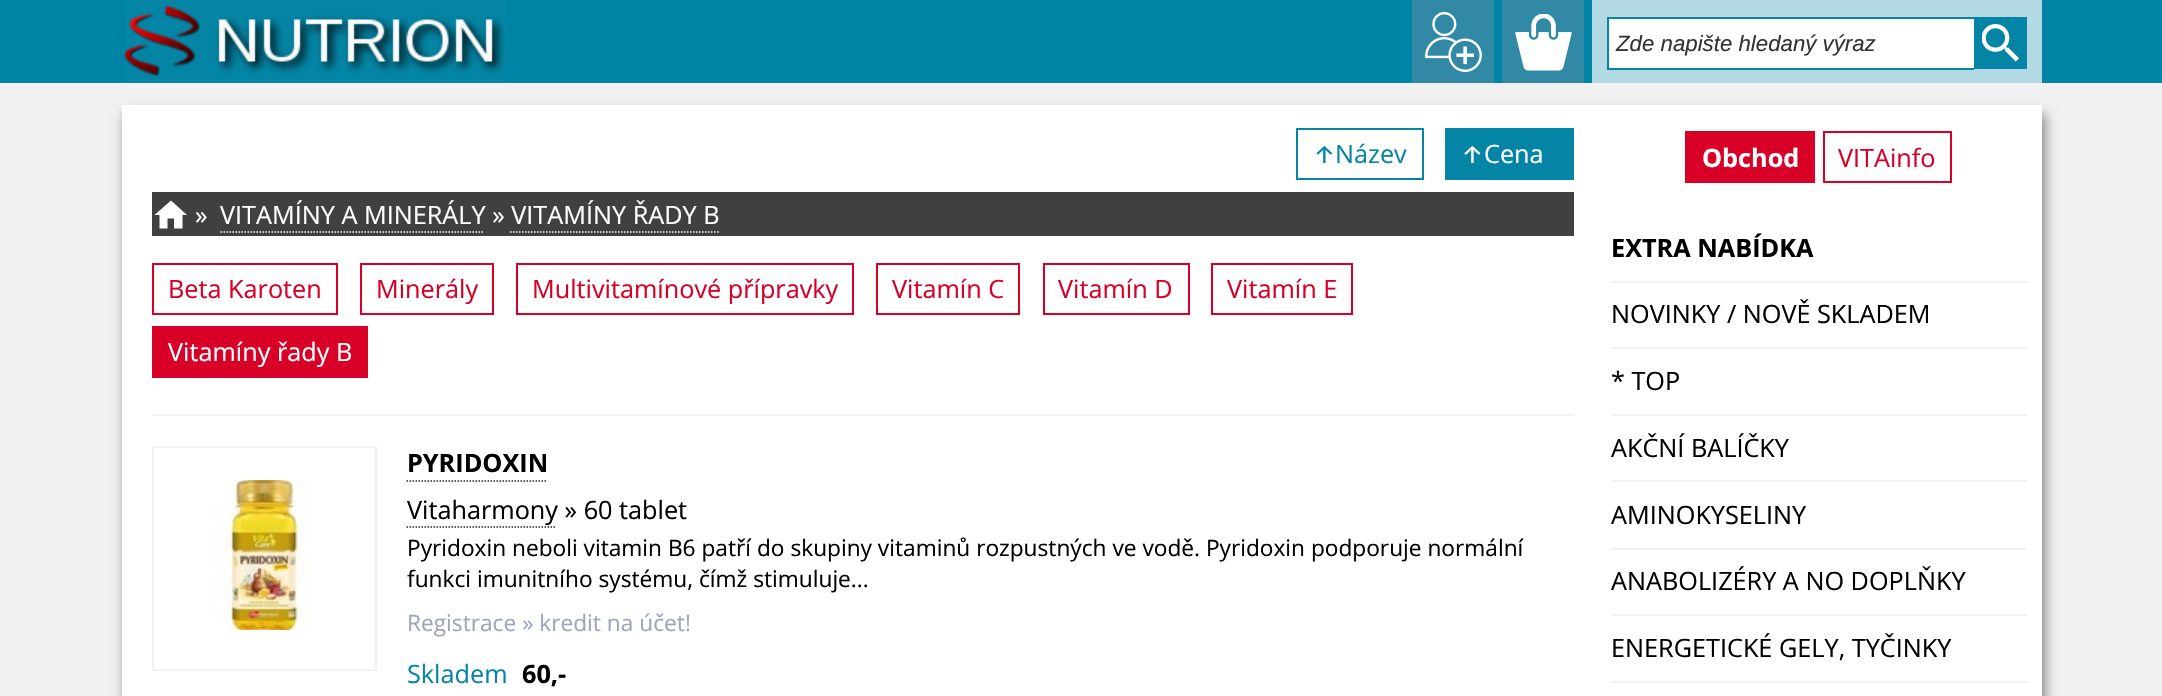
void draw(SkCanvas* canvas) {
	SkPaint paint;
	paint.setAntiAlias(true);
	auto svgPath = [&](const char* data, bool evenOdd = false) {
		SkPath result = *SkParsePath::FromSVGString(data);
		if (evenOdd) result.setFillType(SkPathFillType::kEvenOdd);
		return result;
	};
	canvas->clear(0xfff1f1f1);
	paint.setColor(0xff0084a5);
	canvas->drawRect(SkRect::MakeXYWH(0, 0, 2162, 83), paint);
	paint.setColor(0xff0485a5);
	canvas->drawRect(SkRect::MakeXYWH(125, 0, 382, 83), paint);
	canvas->drawImageRect(SkImages::DeferredFromEncodedData(SkData::MakeFromFileName("img1.png")), SkRect::MakeXYWH(124, 5, 381, 72), SkSamplingOptions());
	paint.setColor(0xff3189a6);
	canvas->drawRect(SkRect::MakeXYWH(1412, 0, 82, 83), paint);
	canvas->drawImageRect(SkImages::DeferredFromEncodedData(SkData::MakeFromFileName("img2.png")), SkRect::MakeXYWH(1425, 12, 57, 60), SkSamplingOptions());
	canvas->drawRect(SkRect::MakeXYWH(1502, 0, 82, 83), paint);
	canvas->drawImageRect(SkImages::DeferredFromEncodedData(SkData::MakeFromFileName("img3.png")), SkRect::MakeXYWH(1515, 14, 57, 57), SkSamplingOptions());
	paint.setColor(0xffb3dae4);
	canvas->drawRect(SkRect::MakeXYWH(1592, 0, 450, 83), paint);
	paint.setColor(0xffffffff);
	canvas->drawRect(SkRect::MakeXYWH(1609, 19, 365, 49), paint);
	paint.setColor(0xff0485a5);
	canvas->drawRect(SkRect::MakeXYWH(1607, 17, 367, 2), paint);
	canvas->drawRect(SkRect::MakeXYWH(1607, 68, 367, 2), paint);
	canvas->drawRect(SkRect::MakeXYWH(1607, 17, 2, 52), paint);
	SkFont f1(fontMgr->matchFamilyStyle("Liberation Sans", SkFontStyle::Italic()), 22.25);
	f1.setSubpixel(true);
	paint.setColor(0xff333333);
	canvas->drawString("Zde napište hledaný výraz", 1616, 51, f1, paint);
	paint.setColor(0xff0485a5);
	canvas->drawRect(SkRect::MakeXYWH(1974, 17, 53, 52), paint);
	canvas->drawImageRect(SkImages::DeferredFromEncodedData(SkData::MakeFromFileName("img4.png")), SkRect::MakeXYWH(1982, 24, 37, 38), SkSamplingOptions());
	paint.setColor(0xff808080);
	paint.setMaskFilter(SkMaskFilter::MakeBlur(kNormal_SkBlurStyle, 6));
	canvas->drawRect(SkRect::MakeXYWH(125, 114, 1920, 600), paint);
	paint.setMaskFilter(nullptr);
	paint.setColor(0xffffffff);
	canvas->drawRect(SkRect::MakeXYWH(122, 105, 1920, 591), paint);
	paint.setStroke(true);
	paint.setStrokeWidth(2);
	paint.setColor(0xff0485a5);
	canvas->drawRect(SkRect::MakeXYWH(1297, 129, 126, 50), paint);
	SkFont f2(fontMgr->matchFamilyStyle("Fira Sans", SkFontStyle::Normal()), 25.25);
	f2.setSubpixel(true);
	paint.setStroke(false);
	canvas->drawString("↑", 1313, 163, f2, paint);
	SkFont f3(fontMgr->matchFamilyStyle("Open Sans", SkFontStyle::Normal()), 25.25);
	f3.setSubpixel(true);
	canvas->drawString("Název", 1335, 163, f3, paint);
	canvas->drawRect(SkRect::MakeXYWH(1445, 128, 129, 52), paint);
	paint.setColor(0xffffffff);
	canvas->drawString("↑", 1461, 163, f2, paint);
	canvas->drawString("Cena", 1484, 163, f3, paint);
	paint.setColor(0xff404040);
	canvas->drawRect(SkRect::MakeXYWH(152, 192, 1422, 44), paint);
	paint.setColor(0xffffffff);
	canvas->drawPath(svgPath("M167.5 228.5V218.5H174V228.5H182.5V215H187L171 200.5L154.5 215H159.5V228.5Z"), paint);
	canvas->drawString("»", 195, 224, f3, paint);
	canvas->drawString("VITAMÍNY A MINERÁLY » VITAMÍNY ŘADY B", 220, 224, f3, paint);
	paint.setStroke(true);
	paint.setStrokeWidth(1.5);
	paint.setPathEffect(SkDashPathEffect::Make({{1.5f, 1.5f}}, 0));
	canvas->drawPath(svgPath("M220.5 232H484.5"), paint);
	paint.setPathEffect(nullptr);
	paint.setPathEffect(SkDashPathEffect::Make({{1.5f, 1.5f}}, 0));
	canvas->drawPath(svgPath("M510 232H718.5"), paint);
	paint.setPathEffect(nullptr);
	paint.setStrokeWidth(2);
	paint.setColor(0xffd80027);
	canvas->drawRect(SkRect::MakeXYWH(153, 264, 184, 50), paint);
	paint.setStroke(false);
	canvas->drawString("Beta Karoten", 168, 298, f3, paint);
	paint.setStroke(true);
	canvas->drawRect(SkRect::MakeXYWH(361, 264, 132, 50), paint);
	paint.setStroke(false);
	canvas->drawString("Minerály", 376, 298, f3, paint);
	paint.setStroke(true);
	canvas->drawRect(SkRect::MakeXYWH(517, 264, 336, 50), paint);
	paint.setStroke(false);
	canvas->drawString("Multivitamínové přípravky", 532, 298, f3, paint);
	paint.setStroke(true);
	canvas->drawRect(SkRect::MakeXYWH(877, 264, 142, 50), paint);
	paint.setStroke(false);
	canvas->drawString("Vitamín C", 892, 298, f3, paint);
	paint.setStroke(true);
	canvas->drawRect(SkRect::MakeXYWH(1044, 264, 145, 50), paint);
	paint.setStroke(false);
	canvas->drawString("Vitamín D", 1058, 298, f3, paint);
	paint.setStroke(true);
	canvas->drawRect(SkRect::MakeXYWH(1212, 264, 140, 50), paint);
	paint.setStroke(false);
	canvas->drawString("Vitamín E", 1227, 298, f3, paint);
	canvas->drawRect(SkRect::MakeXYWH(152, 326, 216, 52), paint);
	paint.setColor(0xffffffff);
	canvas->drawString("Vitamíny řady B", 168, 361, f3, paint);
	paint.setColor(0xfff1f1f1);
	canvas->drawRect(SkRect::MakeXYWH(152, 414, 1422, 2), paint);
	paint.setStroke(true);
	canvas->drawRect(SkRect::MakeXYWH(153, 447, 223, 223), paint);
	canvas->drawImageRect(SkImages::DeferredFromEncodedData(SkData::MakeFromFileName("img5.png")), SkRect::MakeXYWH(213, 480, 97, 150), SkSamplingOptions());
	SkFont f4(fontMgr->matchFamilyStyle("Open Sans", SkFontStyle::Bold()), 25.25);
	f4.setSubpixel(true);
	paint.setStroke(false);
	paint.setColor(0xff000000);
	canvas->drawString("PYRIDOXIN", 407, 472, f4, paint);
	paint.setStroke(true);
	paint.setStrokeWidth(1.5);
	paint.setColor(0xff292929);
	paint.setPathEffect(SkDashPathEffect::Make({{1.5f, 1.5f}}, 0));
	canvas->drawPath(svgPath("M406.5 481H547.5"), paint);
	paint.setPathEffect(nullptr);
	paint.setStroke(false);
	paint.setColor(0xff000000);
	canvas->drawString("Vitaharmony » 60 tablet", 407, 519, f3, paint);
	paint.setStroke(true);
	paint.setColor(0xff292929);
	paint.setPathEffect(SkDashPathEffect::Make({{1.5f, 1.5f}}, 0));
	canvas->drawPath(svgPath("M406.5 527H556.5"), paint);
	paint.setPathEffect(nullptr);
	SkFont f5(fontMgr->matchFamilyStyle("Open Sans", SkFontStyle::Normal()), 22.7);
	f5.setSubpixel(true);
	paint.setStroke(false);
	paint.setColor(0xff000000);
	canvas->drawString("Pyridoxin neboli vitamin B6 patří do skupiny vitaminů rozpustných ve vodě. Pyridoxin podporuje normální", 407, 556, f5, paint);
	canvas->drawString("funkci imunitního systému, čímž stimuluje...", 407, 587, f5, paint);
	paint.setColor(0xff9ea4bb);
	canvas->drawString("Registrace » kredit na účet!", 407, 631, f5, paint);
	paint.setColor(0xff0485a5);
	canvas->drawString("Skladem", 407, 683, f3, paint);
	paint.setColor(0xff000000);
	canvas->drawString("60,-", 522, 683, f4, paint);
	paint.setColor(0xffd80027);
	canvas->drawRect(SkRect::MakeXYWH(1685, 131, 130, 52), paint);
	paint.setColor(0xffffffff);
	canvas->drawString("Obchod", 1702, 167, f4, paint);
	paint.setStroke(true);
	paint.setStrokeWidth(2);
	paint.setColor(0xffd80027);
	canvas->drawRect(SkRect::MakeXYWH(1824, 132, 127, 50), paint);
	paint.setStroke(false);
	canvas->drawString("VITAinfo", 1838, 167, f3, paint);
	paint.setColor(0xfff1f1f1);
	canvas->drawRect(SkRect::MakeXYWH(1611, 281, 416, 2), paint);
	paint.setColor(0xff000000);
	canvas->drawString("EXTRA NABÍDKA", 1611, 257, f4, paint);
	paint.setColor(0xfff1f1f1);
	canvas->drawRect(SkRect::MakeXYWH(1611, 347, 416, 2), paint);
	paint.setColor(0xff000000);
	canvas->drawString("NOVINKY / NOVĚ SKLADEM", 1611, 323, f3, paint);
	paint.setColor(0xfff1f1f1);
	canvas->drawRect(SkRect::MakeXYWH(1611, 414, 416, 2), paint);
	paint.setColor(0xff000000);
	canvas->drawString("* TOP", 1611, 390, f3, paint);
	paint.setColor(0xfff1f1f1);
	canvas->drawRect(SkRect::MakeXYWH(1611, 480, 416, 2), paint);
	paint.setColor(0xff000000);
	canvas->drawString("AKČNÍ BALÍČKY", 1611, 457, f3, paint);
	paint.setColor(0xfff1f1f1);
	canvas->drawRect(SkRect::MakeXYWH(1611, 548, 416, 2), paint);
	paint.setColor(0xff000000);
	canvas->drawString("AMINOKYSELINY", 1611, 524, f3, paint);
	paint.setColor(0xfff1f1f1);
	canvas->drawRect(SkRect::MakeXYWH(1611, 614, 416, 2), paint);
	paint.setColor(0xff000000);
	canvas->drawString("ANABOLIZÉRY A NO DOPLŇKY", 1611, 590, f3, paint);
	paint.setColor(0xfff1f1f1);
	canvas->drawRect(SkRect::MakeXYWH(1611, 681, 416, 2), paint);
	paint.setColor(0xff000000);
	canvas->drawString("ENERGETICKÉ GELY, TYČINKY", 1611, 657, f3, paint);
}
